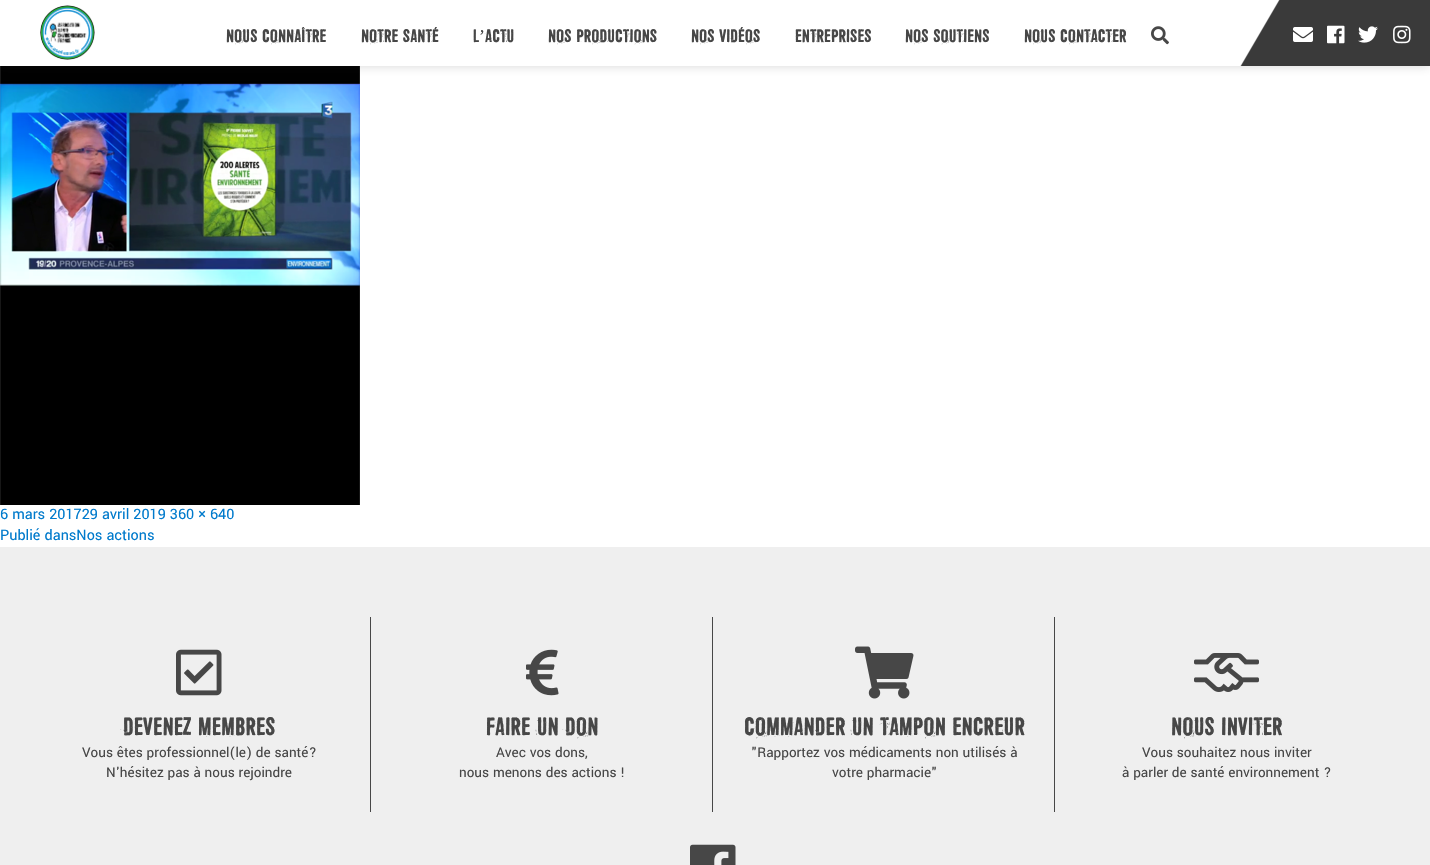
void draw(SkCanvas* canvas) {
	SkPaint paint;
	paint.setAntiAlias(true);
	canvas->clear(0xffffffff);
	canvas->drawImageRect(SkImages::DeferredFromEncodedData(SkData::MakeFromFileName("img8.png")), SkRect::MakeXYWH(0, 66, 360, 439), SkSamplingOptions());
	paint.setColor(0x33323232);
	paint.setMaskFilter(SkMaskFilter::MakeBlur(kNormal_SkBlurStyle, 5));
	canvas->drawRect(SkRect::MakeXYWH(0, 0, 1430, 66), paint);
	paint.setMaskFilter(nullptr);
	paint.setColor(0xffffffff);
	canvas->drawRect(SkRect::MakeXYWH(0, 0, 1280, 66), paint);
	canvas->drawImageRect(SkImages::DeferredFromEncodedData(SkData::MakeFromFileName("img1.png")), SkRect::MakeXYWH(40, 5, 55, 55), SkSamplingOptions());
	paint.setStroke(true);
	paint.setStrokeWidth(5);
	canvas->drawCircle(67.5, 32.5, 30, paint);
	SkFont f1(fontMgr->matchFamilyStyle("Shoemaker", SkFontStyle::Normal()), 18);
	f1.setSubpixel(true);
	paint.setStroke(false);
	paint.setColor(0xff474747);
	canvas->drawString("NOUS CONNAÎTRE", 226, 42, f1, paint);
	canvas->drawString("NOTRE SANTÉ", 361, 42, f1, paint);
	canvas->drawString("L", 473, 42, f1, paint);
	SkFont f2(fontMgr->matchFamilyStyle("Liberation Serif", SkFontStyle::Normal()), 18);
	f2.setSubpixel(true);
	canvas->drawString("’", 479, 42, f2, paint);
	canvas->drawString("ACTU", 485, 42, f1, paint);
	canvas->drawString("NOS PRODUCTIONS", 548, 42, f1, paint);
	canvas->drawString("NOS VIDÉOS", 691, 42, f1, paint);
	canvas->drawString("ENTREPRISES", 795, 42, f1, paint);
	canvas->drawString("NOS SOUTIENS", 905, 42, f1, paint);
	canvas->drawString("NOUS CONTACTER", 1024, 42, f1, paint);
	canvas->drawImageRect(SkImages::DeferredFromEncodedData(SkData::MakeFromFileName("img2.png")), SkRect::MakeXYWH(1151, 26, 18, 19), SkSamplingOptions());
	canvas->drawImageRect(SkImages::DeferredFromEncodedData(SkData::MakeFromFileName("img3.png")), SkRect::MakeXYWH(1240, 0, 190, 66), SkSamplingOptions());
	canvas->drawImageRect(SkImages::DeferredFromEncodedData(SkData::MakeFromFileName("img4.png")), SkRect::MakeXYWH(1293, 27, 20, 15), SkSamplingOptions());
	canvas->drawImageRect(SkImages::DeferredFromEncodedData(SkData::MakeFromFileName("img5.png")), SkRect::MakeXYWH(1327, 25, 18, 19), SkSamplingOptions());
	canvas->drawImageRect(SkImages::DeferredFromEncodedData(SkData::MakeFromFileName("img6.png")), SkRect::MakeXYWH(1358, 26, 20, 17), SkSamplingOptions());
	canvas->drawImageRect(SkImages::DeferredFromEncodedData(SkData::MakeFromFileName("img7.png")), SkRect::MakeXYWH(1393, 25, 18, 19), SkSamplingOptions());
	SkFont f3(fontMgr->matchFamilyStyle("Yantramanav", SkFontStyle::Normal()), 16);
	f3.setSubpixel(true);
	paint.setColor(0xff007acc);
	canvas->drawString("6 mars 201729 avril 2019 360 × 640", 0, 519, f3, paint);
	canvas->drawString("Publié dansNos actions", 0, 540, f3, paint);
	paint.setColor(0xffefefef);
	canvas->drawRect(SkRect::MakeXYWH(0, 547, 1430, 318), paint);
	canvas->drawImageRect(SkImages::DeferredFromEncodedData(SkData::MakeFromFileName("img9.png")), SkRect::MakeXYWH(176, 649, 46, 47), SkSamplingOptions());
	SkFont f4(fontMgr->matchFamilyStyle("Shoemaker", SkFontStyle::Normal()), 25);
	f4.setSubpixel(true);
	paint.setColor(0xff474747);
	canvas->drawString("DEVENEZ MEMBRES", 123, 735, f4, paint);
	SkFont f5(fontMgr->matchFamilyStyle("Yantramanav", SkFontStyle::Normal()), 15);
	f5.setSubpixel(true);
	canvas->drawString("Vous êtes professionnel(le) de santé?", 82, 757, f5, paint);
	canvas->drawString("N'hésitez pas à nous rejoindre", 106, 777, f5, paint);
	canvas->drawRect(SkRect::MakeXYWH(370, 617, 1, 195), paint);
	canvas->drawImageRect(SkImages::DeferredFromEncodedData(SkData::MakeFromFileName("img10.png")), SkRect::MakeXYWH(526, 649, 33, 47), SkSamplingOptions());
	canvas->drawString("FAIRE UN DON", 486, 735, f4, paint);
	canvas->drawString("Avec vos dons,", 496, 757, f5, paint);
	canvas->drawString("nous menons des actions !", 459, 777, f5, paint);
	canvas->drawRect(SkRect::MakeXYWH(712, 617, 1, 195), paint);
	canvas->drawImageRect(SkImages::DeferredFromEncodedData(SkData::MakeFromFileName("img11.png")), SkRect::MakeXYWH(855, 646, 59, 53), SkSamplingOptions());
	canvas->drawString("COMMANDER UN TAMPON ENCREUR", 744, 735, f4, paint);
	canvas->drawString("\"Rapportez vos médicaments non utilisés à", 751, 757, f5, paint);
	canvas->drawString("votre pharmacie\"", 832, 777, f5, paint);
	canvas->drawRect(SkRect::MakeXYWH(1054, 617, 1, 195), paint);
	canvas->drawImageRect(SkImages::DeferredFromEncodedData(SkData::MakeFromFileName("img12.png")), SkRect::MakeXYWH(1194, 653, 65, 39), SkSamplingOptions());
	canvas->drawString("NOUS INVITER", 1171, 735, f4, paint);
	canvas->drawString("Vous souhaitez nous inviter", 1142, 757, f5, paint);
	canvas->drawString("à parler de santé environnement ?", 1122, 777, f5, paint);
	canvas->drawImageRect(SkImages::DeferredFromEncodedData(SkData::MakeFromFileName("img13.png")), SkRect::MakeXYWH(690, 844, 46, 21), SkSamplingOptions());
}
